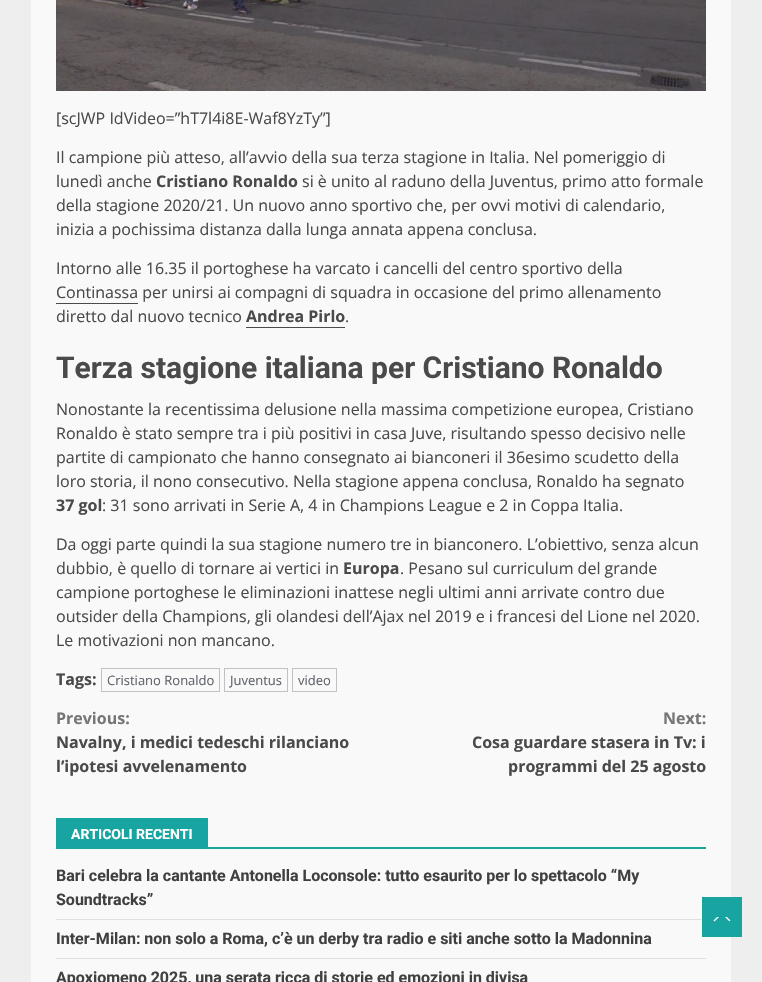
void draw(SkCanvas* canvas) {
	SkPaint paint;
	paint.setAntiAlias(true);
	auto svgPath = [&](const char* data, bool evenOdd = false) {
		SkPath result = *SkParsePath::FromSVGString(data);
		if (evenOdd) result.setFillType(SkPathFillType::kEvenOdd);
		return result;
	};
	canvas->clear(0xffeeeeee);
	paint.setColor(0xfff9f9f9);
	canvas->drawRect(SkRect::MakeXYWH(31, 0, 700, 982), paint);
	canvas->drawImageRect(SkImages::DeferredFromEncodedData(SkData::MakeFromFileName("img1.png")), SkRect::MakeXYWH(56, 0, 650, 91), SkSamplingOptions());
	SkFont f1(fontMgr->matchFamilyStyle("Open Sans", SkFontStyle::Normal()), 16);
	f1.setSubpixel(true);
	paint.setColor(0xff4a4a4a);
	canvas->drawString("[scJWP IdVideo=”hT7l4i8E-Waf8YzTy”]", 56, 124, f1, paint);
	canvas->drawString("Il campione più atteso, all’avvio della sua terza stagione in Italia. Nel pomeriggio di", 56, 163, f1, paint);
	canvas->drawString("lunedì anche", 56, 187, f1, paint);
	SkFont f2(fontMgr->matchFamilyStyle("Open Sans", SkFontStyle::Bold()), 16);
	f2.setSubpixel(true);
	canvas->drawString("Cristiano Ronaldo", 156, 187, f2, paint);
	canvas->drawString("si è unito al raduno della Juventus, primo atto formale", 302, 187, f1, paint);
	canvas->drawString("della stagione 2020/21. Un nuovo anno sportivo che, per ovvi motivi di calendario,", 56, 211, f1, paint);
	canvas->drawString("inizia a pochissima distanza dalla lunga annata appena conclusa.", 56, 235, f1, paint);
	canvas->drawString("Intorno alle 16.35 il portoghese ha varcato i cancelli del centro sportivo della", 56, 274, f1, paint);
	canvas->drawString("Continassa per unirsi ai compagni di squadra in occasione del primo allenamento", 56, 298, f1, paint);
	canvas->drawRect(SkRect::MakeXYWH(56, 303, 82, 1), paint);
	canvas->drawString("diretto dal nuovo tecnico", 56, 322, f1, paint);
	canvas->drawString("Andrea Pirlo", 246, 322, f2, paint);
	canvas->drawRect(SkRect::MakeXYWH(246, 327, 99, 1), paint);
	canvas->drawString(".", 345, 322, f1, paint);
	SkFont f3(fontMgr->matchFamilyStyle("Roboto", SkFontStyle::Bold()), 30);
	f3.setSubpixel(true);
	canvas->drawString("Terza stagione italiana per Cristiano Ronaldo", 56, 378, f3, paint);
	canvas->drawString("Nonostante la recentissima delusione nella massima competizione europea, Cristiano", 56, 415, f1, paint);
	canvas->drawString("Ronaldo è stato sempre tra i più positivi in casa Juve, risultando spesso decisivo nelle", 56, 439, f1, paint);
	canvas->drawString("partite di campionato che hanno consegnato ai bianconeri il 36esimo scudetto della", 56, 463, f1, paint);
	canvas->drawString("loro storia, il nono consecutivo. Nella stagione appena conclusa, Ronaldo ha segnato", 56, 487, f1, paint);
	canvas->drawString("37 gol", 56, 511, f2, paint);
	canvas->drawString(": 31 sono arrivati in Serie A, 4 in Champions League e 2 in Coppa Italia.", 102, 511, f1, paint);
	canvas->drawString("Da oggi parte quindi la sua stagione numero tre in bianconero. L’obiettivo, senza alcun", 56, 550, f1, paint);
	canvas->drawString("dubbio, è quello di tornare ai vertici in", 56, 574, f1, paint);
	canvas->drawString("Europa", 343, 574, f2, paint);
	canvas->drawString(". Pesano sul curriculum del grande", 400, 574, f1, paint);
	canvas->drawString("campione portoghese le eliminazioni inattese negli ultimi anni arrivate contro due", 56, 598, f1, paint);
	canvas->drawString("outsider della Champions, gli olandesi dell’Ajax nel 2019 e i francesi del Lione nel 2020.", 56, 622, f1, paint);
	canvas->drawString("Le motivazioni non mancano.", 56, 646, f1, paint);
	canvas->drawString("Tags:", 56, 685, f2, paint);
	paint.setStroke(true);
	paint.setStrokeWidth(1);
	paint.setColor(0xffbfc1c3);
	canvas->drawRect(SkRect::MakeXYWH(101.5, 668.5, 118, 23), paint);
	SkFont f4(fontMgr->matchFamilyStyle("Open Sans", SkFontStyle::Normal()), 13);
	f4.setSubpixel(true);
	paint.setStroke(false);
	paint.setColor(0xff5f636a);
	canvas->drawString("Cristiano Ronaldo", 107, 685, f4, paint);
	paint.setStroke(true);
	paint.setColor(0xffbfc1c3);
	canvas->drawRect(SkRect::MakeXYWH(224.5, 668.5, 63, 23), paint);
	paint.setStroke(false);
	paint.setColor(0xff5f636a);
	canvas->drawString("Juventus", 230, 685, f4, paint);
	paint.setStroke(true);
	paint.setColor(0xffbfc1c3);
	canvas->drawRect(SkRect::MakeXYWH(292.5, 668.5, 44, 23), paint);
	paint.setStroke(false);
	paint.setColor(0xff5f636a);
	canvas->drawString("video", 298, 685, f4, paint);
	paint.setColor(0xff767676);
	canvas->drawString("Previous:", 56, 724, f2, paint);
	paint.setColor(0xff4a4a4a);
	canvas->drawString("Navalny, i medici tedeschi rilanciano", 56, 748, f2, paint);
	canvas->drawString("l’ipotesi avvelenamento", 56, 772, f2, paint);
	paint.setColor(0xff767676);
	canvas->drawString("Next:", 663, 724, f2, paint);
	paint.setColor(0xff4a4a4a);
	canvas->drawString("Cosa guardare stasera in Tv: i", 472, 748, f2, paint);
	canvas->drawString("programmi del 25 agosto", 508, 772, f2, paint);
	paint.setColor(0xff18a5a1);
	canvas->drawRect(SkRect::MakeXYWH(56, 847, 650, 2), paint);
	canvas->drawRect(SkRect::MakeXYWH(56, 818, 152, 29), paint);
	SkFont f5(fontMgr->matchFamilyStyle("Roboto", SkFontStyle::Bold()), 14);
	f5.setSubpixel(true);
	paint.setColor(0xffffffff);
	canvas->drawString("ARTICOLI RECENTI", 71, 839, f5, paint);
	paint.setColor(0xffe0e0e0);
	canvas->drawRect(SkRect::MakeXYWH(56, 919, 650, 1), paint);
	SkFont f6(fontMgr->matchFamilyStyle("Roboto", SkFontStyle::Bold()), 16);
	f6.setSubpixel(true);
	paint.setColor(0xff404040);
	canvas->drawString("Bari celebra la cantante Antonella Loconsole: tutto esaurito per lo spettacolo “My", 56, 881, f6, paint);
	canvas->drawString("Soundtracks”", 56, 905, f6, paint);
	paint.setColor(0xffe0e0e0);
	canvas->drawRect(SkRect::MakeXYWH(56, 958, 650, 1), paint);
	paint.setColor(0xff404040);
	canvas->drawString("Inter-Milan: non solo a Roma, c’è un derby tra radio e siti anche sotto la Madonnina", 56, 944, f6, paint);
	canvas->drawString("Apoxiomeno 2025, una serata ricca di storie ed emozioni in divisa", 56, 983, f6, paint);
	paint.setColor(0xff18a5a1);
	canvas->drawRect(SkRect::MakeXYWH(702, 897, 40, 40), paint);
	paint.setColor(0xffffffff);
	canvas->drawPath(svgPath("M717 922C720 922 728.5 923 730.5 920.5L727 917H717L713.5 920.5C714 921.5 715.5 922 717 922Z"), paint);
	paint.setColor(0xff18a5a1);
	canvas->drawPath(svgPath("M732 924H712L722 914Z"), paint);
}
